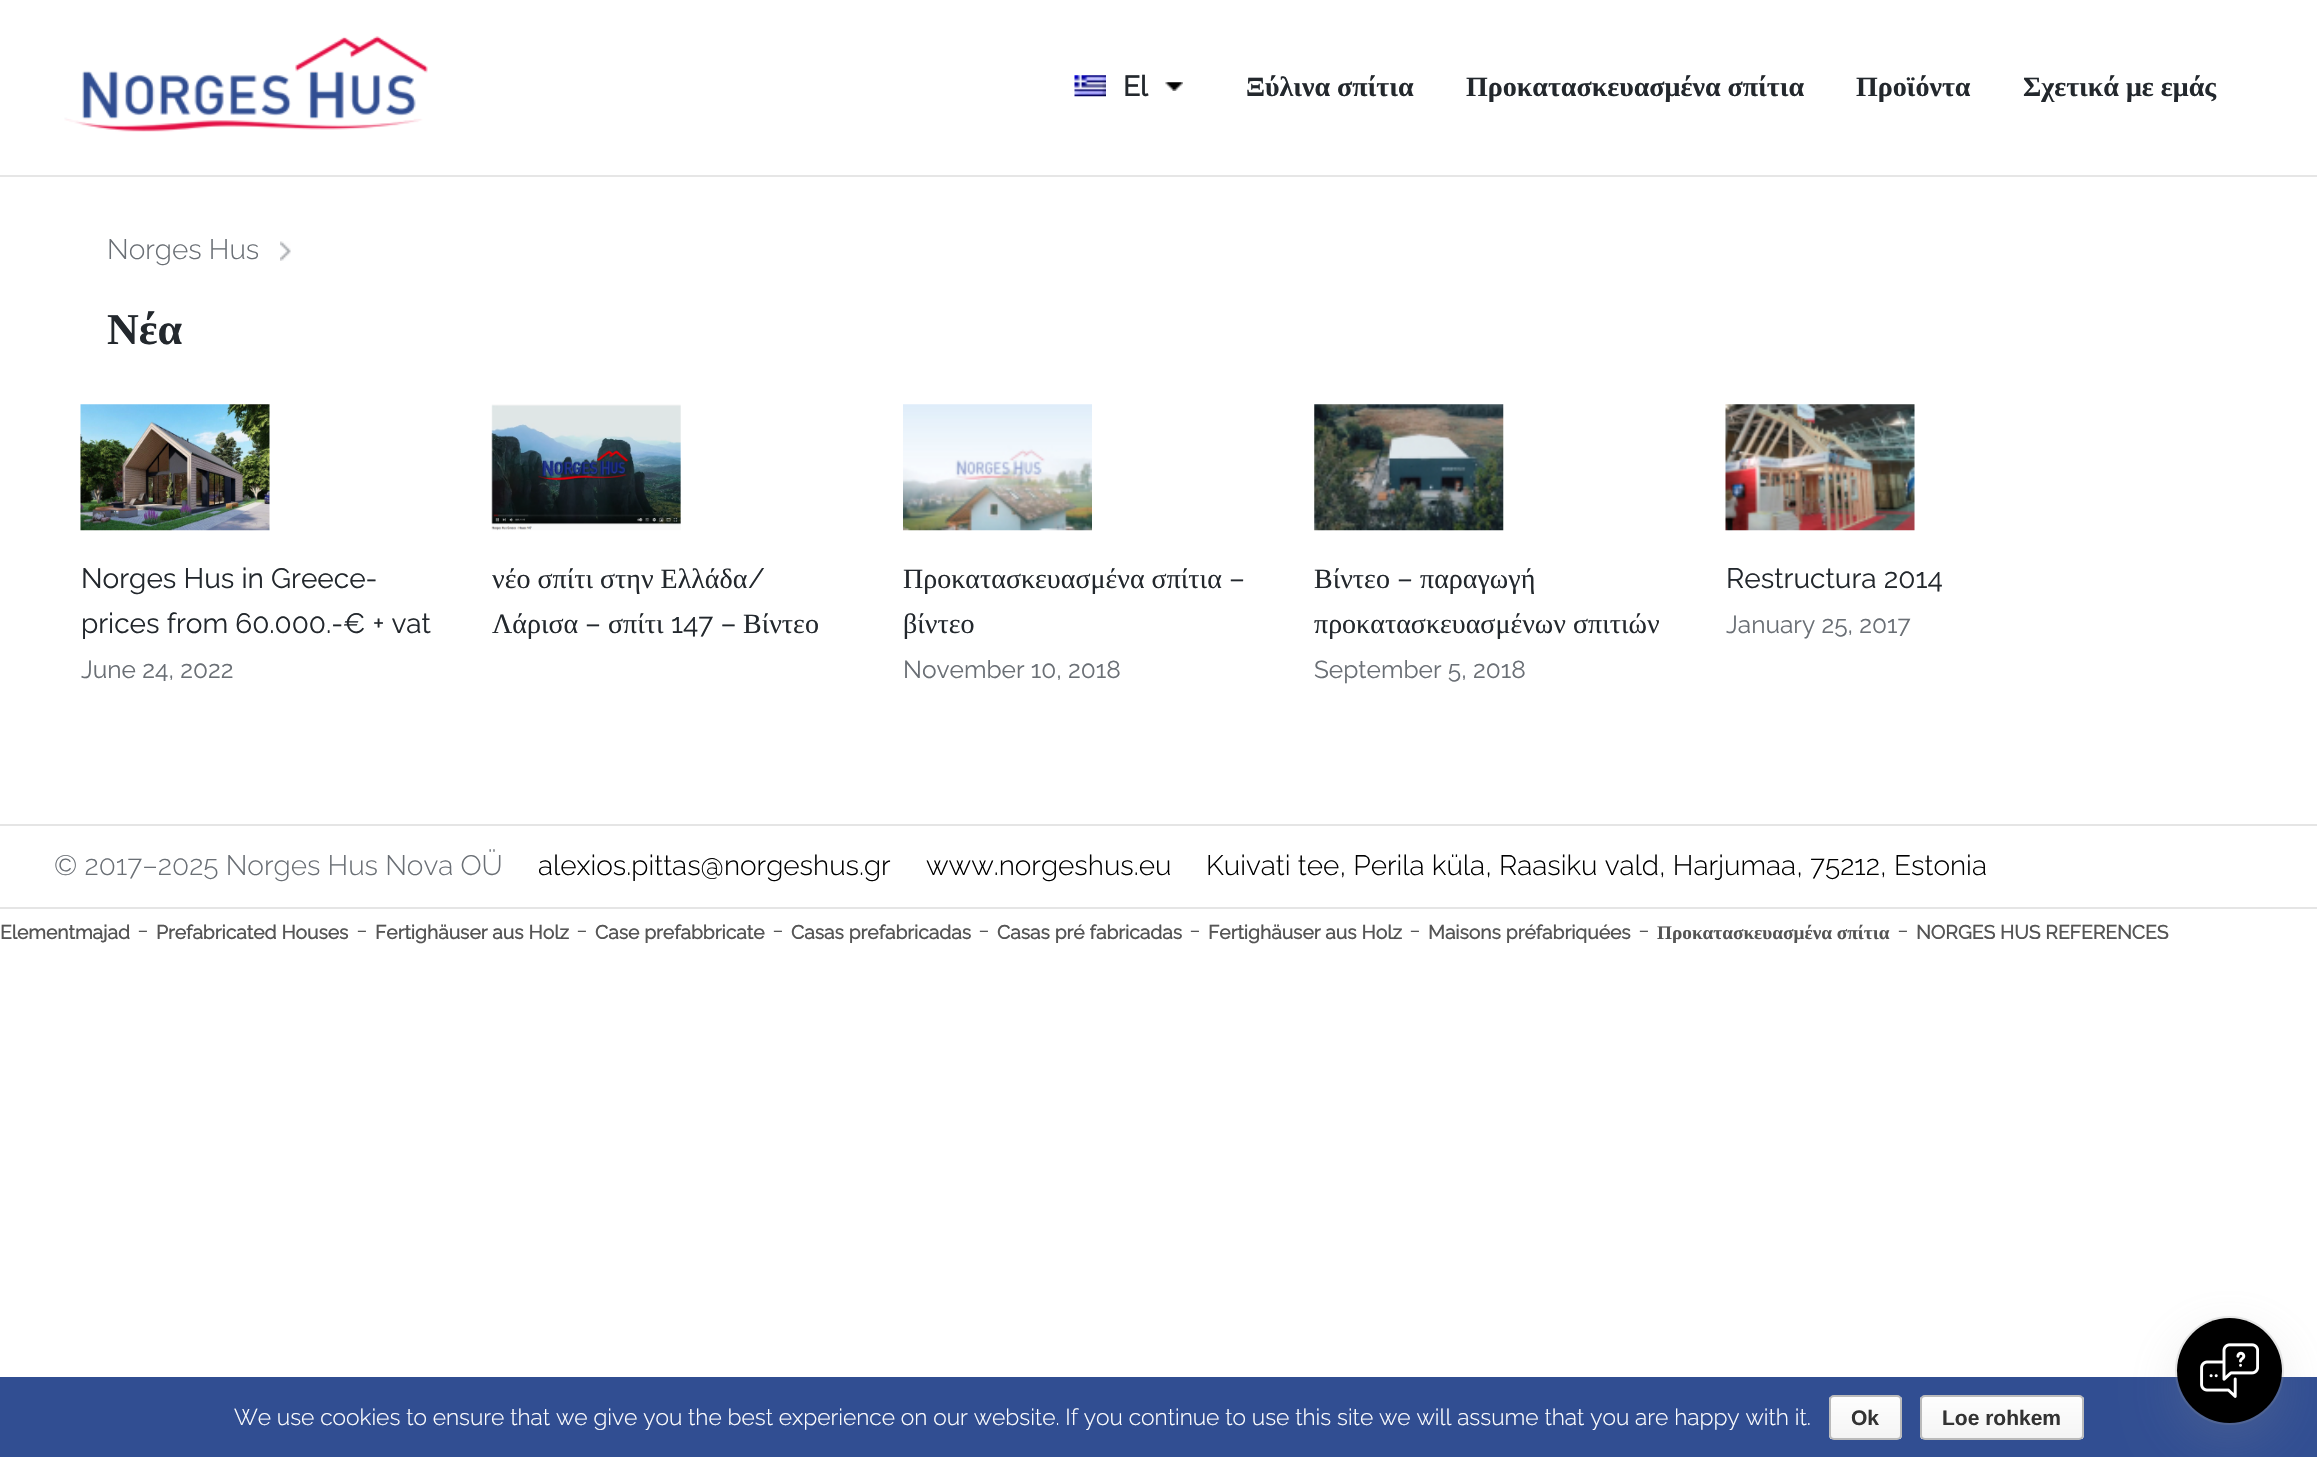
void draw(SkCanvas* canvas) {
	SkPaint paint;
	paint.setAntiAlias(true);
	auto svgPath = [&](const char* data, bool evenOdd = false) {
		SkPath result = *SkParsePath::FromSVGString(data);
		if (evenOdd) result.setFillType(SkPathFillType::kEvenOdd);
		return result;
	};
	canvas->clear(0xffffffff);
	canvas->drawImageRect(SkImages::DeferredFromEncodedData(SkData::MakeFromFileName("img1.png")), SkRect::MakeXYWH(64, 36, 364, 96), SkSamplingOptions());
	canvas->drawImageRect(SkImages::DeferredFromEncodedData(SkData::MakeFromFileName("img2.png")), SkRect::MakeXYWH(1074, 75, 32, 22), SkSamplingOptions());
	SkFont f1(fontMgr->matchFamilyStyle("Raleway", SkFontStyle::Bold()), 28);
	f1.setSubpixel(true);
	paint.setColor(0xff23282d);
	canvas->drawString("El", 1123, 96, f1, paint);
	canvas->drawImageRect(SkImages::DeferredFromEncodedData(SkData::MakeFromFileName("img3.png")), SkRect::MakeXYWH(1165, 82, 18, 9), SkSamplingOptions());
	SkFont f2(fontMgr->matchFamilyStyle("Liberation Serif", SkFontStyle::Bold()), 28);
	f2.setSubpixel(true);
	canvas->drawString("Ξύλινα σπίτια", 1246, 96, f2, paint);
	canvas->drawString("Προκατασκευασμένα σπίτια", 1466, 96, f2, paint);
	canvas->drawString("Προϊόντα", 1856, 96, f2, paint);
	canvas->drawString("Σχετικά με εμάς", 2023, 96, f2, paint);
	paint.setColor(0xffe6e6e6);
	canvas->drawRect(SkRect::MakeXYWH(0, 175, 2317, 2), paint);
	SkFont f3(fontMgr->matchFamilyStyle("Raleway", SkFontStyle(300, SkFontStyle::kNormal_Width, SkFontStyle::kUpright_Slant)), 28);
	f3.setSubpixel(true);
	paint.setColor(0xff6a6f75);
	canvas->drawString("Norges Hus", 107, 259, f3, paint);
	canvas->drawImageRect(SkImages::DeferredFromEncodedData(SkData::MakeFromFileName("img4.png")), SkRect::MakeXYWH(280, 241, 11, 20), SkSamplingOptions());
	SkFont f4(fontMgr->matchFamilyStyle("Liberation Serif", SkFontStyle::Bold()), 44);
	f4.setSubpixel(true);
	paint.setColor(0xff23282d);
	canvas->drawString("Νέα", 107, 344, f4, paint);
	canvas->drawImageRect(SkImages::DeferredFromEncodedData(SkData::MakeFromFileName("img5.png")), SkRect::MakeXYWH(80, 404, 190, 127), SkSamplingOptions());
	SkFont f5(fontMgr->matchFamilyStyle("Raleway", SkFontStyle::Normal()), 28);
	f5.setSubpixel(true);
	canvas->drawString("Norges Hus in Greece-", 81, 588, f5, paint);
	canvas->drawString("prices from 60.000.-€ + vat", 81, 633, f5, paint);
	SkFont f6(fontMgr->matchFamilyStyle("Raleway", SkFontStyle::Normal()), 24.5);
	f6.setSubpixel(true);
	paint.setColor(0xff6a6f75);
	canvas->drawString("June 24, 2022", 81, 678, f6, paint);
	canvas->drawImageRect(SkImages::DeferredFromEncodedData(SkData::MakeFromFileName("img6.png")), SkRect::MakeXYWH(491, 404, 190, 127), SkSamplingOptions());
	SkFont f7(fontMgr->matchFamilyStyle("Liberation Serif", SkFontStyle::Normal()), 28);
	f7.setSubpixel(true);
	paint.setColor(0xff23282d);
	canvas->drawString("νέο σπίτι στην Ελλάδα", 492, 588, f7, paint);
	canvas->drawString("/", 748, 588, f5, paint);
	canvas->drawString("Λάρισα", 492, 633, f7, paint);
	canvas->drawString("–", 585, 633, f5, paint);
	canvas->drawString("σπίτι", 608, 633, f7, paint);
	canvas->drawString("147 –", 671, 633, f5, paint);
	canvas->drawString("Βίντεο", 743, 633, f7, paint);
	canvas->drawImageRect(SkImages::DeferredFromEncodedData(SkData::MakeFromFileName("img7.png")), SkRect::MakeXYWH(903, 404, 189, 127), SkSamplingOptions());
	canvas->drawString("Προκατασκευασμένα σπίτια", 903, 588, f7, paint);
	canvas->drawString("–", 1229, 588, f5, paint);
	canvas->drawString("βίντεο", 903, 633, f7, paint);
	paint.setColor(0xff6a6f75);
	canvas->drawString("November 10, 2018", 903, 678, f6, paint);
	canvas->drawImageRect(SkImages::DeferredFromEncodedData(SkData::MakeFromFileName("img8.png")), SkRect::MakeXYWH(1314, 404, 190, 127), SkSamplingOptions());
	paint.setColor(0xff23282d);
	canvas->drawString("Βίντεο", 1314, 588, f7, paint);
	canvas->drawString("–", 1397, 588, f5, paint);
	canvas->drawString("παραγωγή", 1420, 588, f7, paint);
	canvas->drawString("προκατασκευασμένων σπιτιών", 1314, 633, f7, paint);
	paint.setColor(0xff6a6f75);
	canvas->drawString("September 5, 2018", 1314, 678, f6, paint);
	canvas->drawImageRect(SkImages::DeferredFromEncodedData(SkData::MakeFromFileName("img9.png")), SkRect::MakeXYWH(1725, 404, 190, 127), SkSamplingOptions());
	paint.setColor(0xff23282d);
	canvas->drawString("Restructura 2014", 1726, 588, f5, paint);
	paint.setColor(0xff6a6f75);
	canvas->drawString("January 25, 2017", 1726, 633, f6, paint);
	paint.setColor(0xffe5e5e5);
	canvas->drawRect(SkRect::MakeXYWH(0, 824, 2317, 2), paint);
	canvas->drawRect(SkRect::MakeXYWH(0, 907, 2317, 2), paint);
	paint.setColor(0xff6a6f75);
	canvas->drawString("© 2017–2025 Norges Hus Nova OÜ", 54, 875, f3, paint);
	paint.setColor(0xff000000);
	canvas->drawString("alexios.pittas@norgeshus.gr", 538, 875, f3, paint);
	canvas->drawString("www.norgeshus.eu", 926, 875, f3, paint);
	canvas->drawString("Kuivati tee, Perila küla, Raasiku vald, Harjumaa, 75212, Estonia", 1206, 875, f3, paint);
	SkFont f8(fontMgr->matchFamilyStyle("Raleway", SkFontStyle::Bold()), 19.25);
	f8.setSubpixel(true);
	paint.setColor(0xff555555);
	canvas->drawString("Elementmajad", 0, 939, f8, paint);
	canvas->drawString("-", 137, 939, f3, paint);
	canvas->drawString("Prefabricated Houses", 156, 939, f8, paint);
	canvas->drawString("-", 356, 939, f3, paint);
	canvas->drawString("Fertighäuser aus Holz", 375, 939, f8, paint);
	canvas->drawString("-", 576, 939, f3, paint);
	canvas->drawString("Case prefabbricate", 595, 939, f8, paint);
	canvas->drawString("-", 772, 939, f3, paint);
	canvas->drawString("Casas prefabricadas", 791, 939, f8, paint);
	canvas->drawString("-", 978, 939, f3, paint);
	canvas->drawString("Casas pré fabricadas", 997, 939, f8, paint);
	canvas->drawString("-", 1189, 939, f3, paint);
	canvas->drawString("Fertighäuser aus Holz", 1208, 939, f8, paint);
	canvas->drawString("-", 1409, 939, f3, paint);
	canvas->drawString("Maisons préfabriquées", 1428, 939, f8, paint);
	canvas->drawString("-", 1638, 939, f3, paint);
	SkFont f9(fontMgr->matchFamilyStyle("Liberation Serif", SkFontStyle::Bold()), 19.25);
	f9.setSubpixel(true);
	canvas->drawString("Προκατασκευασμένα σπίτια", 1657, 939, f9, paint);
	canvas->drawString("-", 1897, 939, f3, paint);
	canvas->drawString("NORGES HUS REFERENCES", 1916, 939, f8, paint);
	paint.setColor(0xff314e92);
	canvas->drawRect(SkRect::MakeXYWH(0, 1377, 2317, 80), paint);
	SkFont f10(fontMgr->matchFamilyStyle("Raleway", SkFontStyle(300, SkFontStyle::kNormal_Width, SkFontStyle::kUpright_Slant)), 22.75);
	f10.setSubpixel(true);
	paint.setColor(0xffffffff);
	canvas->drawString("We use cookies to ensure that we give you the best experience on our website. If you continue to use this site we will assume that you are happy with it.", 234, 1425, f10, paint);
	canvas->save();
	canvas->clipPath(svgPath("M1834 1395H1897C1900 1395 1902 1397 1902 1400V1435C1902 1438 1900 1440 1897 1440H1834C1831 1440 1829 1438 1829 1435V1400C1829 1397 1831 1395 1834 1395Z"), true);
	{
		const SkColor colors[] = {0xfffefefe, 0xfff4f4f4};
		const float stops[] = {0, 1};
		const SkPoint ends[] = {{1866, 1397}, {1866, 1439}};
		paint.setShader(SkGradientShader::MakeLinear(ends, colors, stops, 2, SkTileMode::kClamp));
		paint.setAlpha(255);
	}
	canvas->drawRect(SkRect::MakeXYWH(1829, 1397, 73, 42), paint);
	canvas->restore();
	paint.setStroke(true);
	paint.setStrokeWidth(2);
	paint.setShader(nullptr);
	paint.setColor(0xffbbbbbb);
	canvas->drawRoundRect(SkRect::MakeXYWH(1830, 1396, 71, 43), 4, 4, paint);
	SkFont f11(fontMgr->matchFamilyStyle("Liberation Sans", SkFontStyle::Bold()), 21);
	f11.setSubpixel(true);
	paint.setStroke(false);
	paint.setColor(0xff333333);
	canvas->drawString("Ok", 1851, 1425, f11, paint);
	canvas->save();
	canvas->clipPath(svgPath("M1925 1395H2079C2082 1395 2084 1397 2084 1400V1435C2084 1438 2082 1440 2079 1440H1925C1922 1440 1920 1438 1920 1435V1400C1920 1397 1922 1395 1925 1395Z"), true);
	{
		const SkColor colors[] = {0xfffefefe, 0xfff4f4f4};
		const float stops[] = {0, 1};
		const SkPoint ends[] = {{2002, 1397}, {2002, 1439}};
		paint.setShader(SkGradientShader::MakeLinear(ends, colors, stops, 2, SkTileMode::kClamp));
		paint.setAlpha(255);
	}
	canvas->drawRect(SkRect::MakeXYWH(1920, 1397, 164, 42), paint);
	canvas->restore();
	paint.setStroke(true);
	paint.setShader(nullptr);
	paint.setColor(0xffbbbbbb);
	canvas->drawRoundRect(SkRect::MakeXYWH(1921, 1396, 162, 43), 4, 4, paint);
	paint.setStroke(false);
	paint.setColor(0xff333333);
	canvas->drawString("Loe rohkem", 1942, 1425, f11, paint);
	paint.setStroke(true);
	paint.setColor(0x33969696);
	canvas->drawCircle(2229.5, 1370.5, 53.5, paint);
	paint.setStroke(false);
	paint.setMaskFilter(SkMaskFilter::MakeBlur(kNormal_SkBlurStyle, 26));
	canvas->drawRoundRect(SkRect::MakeXYWH(2177, 1335, 105, 105), 52.5, 52.5, paint);
	paint.setMaskFilter(nullptr);
	paint.setColor(0xff000000);
	canvas->drawCircle(2229.5, 1370.5, 52.5, paint);
	canvas->drawImageRect(SkImages::DeferredFromEncodedData(SkData::MakeFromFileName("img10.png")), SkRect::MakeXYWH(2200, 1343, 59, 55), SkSamplingOptions());
}
